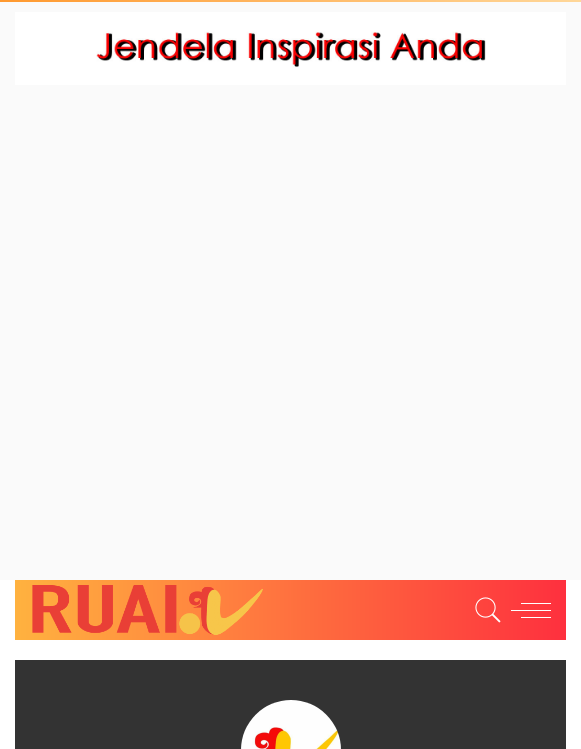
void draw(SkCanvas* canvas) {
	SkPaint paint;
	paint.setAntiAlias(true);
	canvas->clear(0xffffffff);
	{
		const SkColor colors[] = {0xffff992f, 0xffffd799};
		const float stops[] = {0, 1};
		const SkPoint ends[] = {{0, 1}, {581, 1}};
		paint.setShader(SkGradientShader::MakeLinear(ends, colors, stops, 2, SkTileMode::kClamp));
		paint.setAlpha(255);
	}
	canvas->drawRect(SkRect::MakeXYWH(0, 0, 581, 2), paint);
	paint.setShader(nullptr);
	paint.setColor(0xfffafafa);
	canvas->drawRect(SkRect::MakeXYWH(0, 2, 581, 578), paint);
	canvas->drawImageRect(SkImages::DeferredFromEncodedData(SkData::MakeFromFileName("img1.png")), SkRect::MakeXYWH(15, 12, 551, 73), SkSamplingOptions());
	{
		const SkColor colors[] = {0xffffb23f, 0xfffe303e};
		const float stops[] = {0, 1};
		const SkPoint ends[] = {{15, 610}, {566, 610}};
		paint.setShader(SkGradientShader::MakeLinear(ends, colors, stops, 2, SkTileMode::kClamp));
		paint.setAlpha(255);
	}
	canvas->drawRect(SkRect::MakeXYWH(15, 580, 551, 60), paint);
	canvas->drawImageRect(SkImages::DeferredFromEncodedData(SkData::MakeFromFileName("img2.png")), SkRect::MakeXYWH(32, 585, 231, 50), SkSamplingOptions());
	canvas->drawImageRect(SkImages::DeferredFromEncodedData(SkData::MakeFromFileName("img3.png")), SkRect::MakeXYWH(475, 597, 26, 26), SkSamplingOptions());
	paint.setShader(nullptr);
	paint.setColor(0xffffffff);
	canvas->drawRect(SkRect::MakeXYWH(511, 610, 40, 1), paint);
	canvas->drawRect(SkRect::MakeXYWH(521, 603, 30, 1), paint);
	canvas->drawRect(SkRect::MakeXYWH(521, 617, 30, 1), paint);
	paint.setColor(0xff333333);
	canvas->drawRect(SkRect::MakeXYWH(15, 660, 551, 89), paint);
	canvas->drawImageRect(SkImages::DeferredFromEncodedData(SkData::MakeFromFileName("img4.png")), SkRect::MakeXYWH(241, 700, 100, 49), SkSamplingOptions());
}
